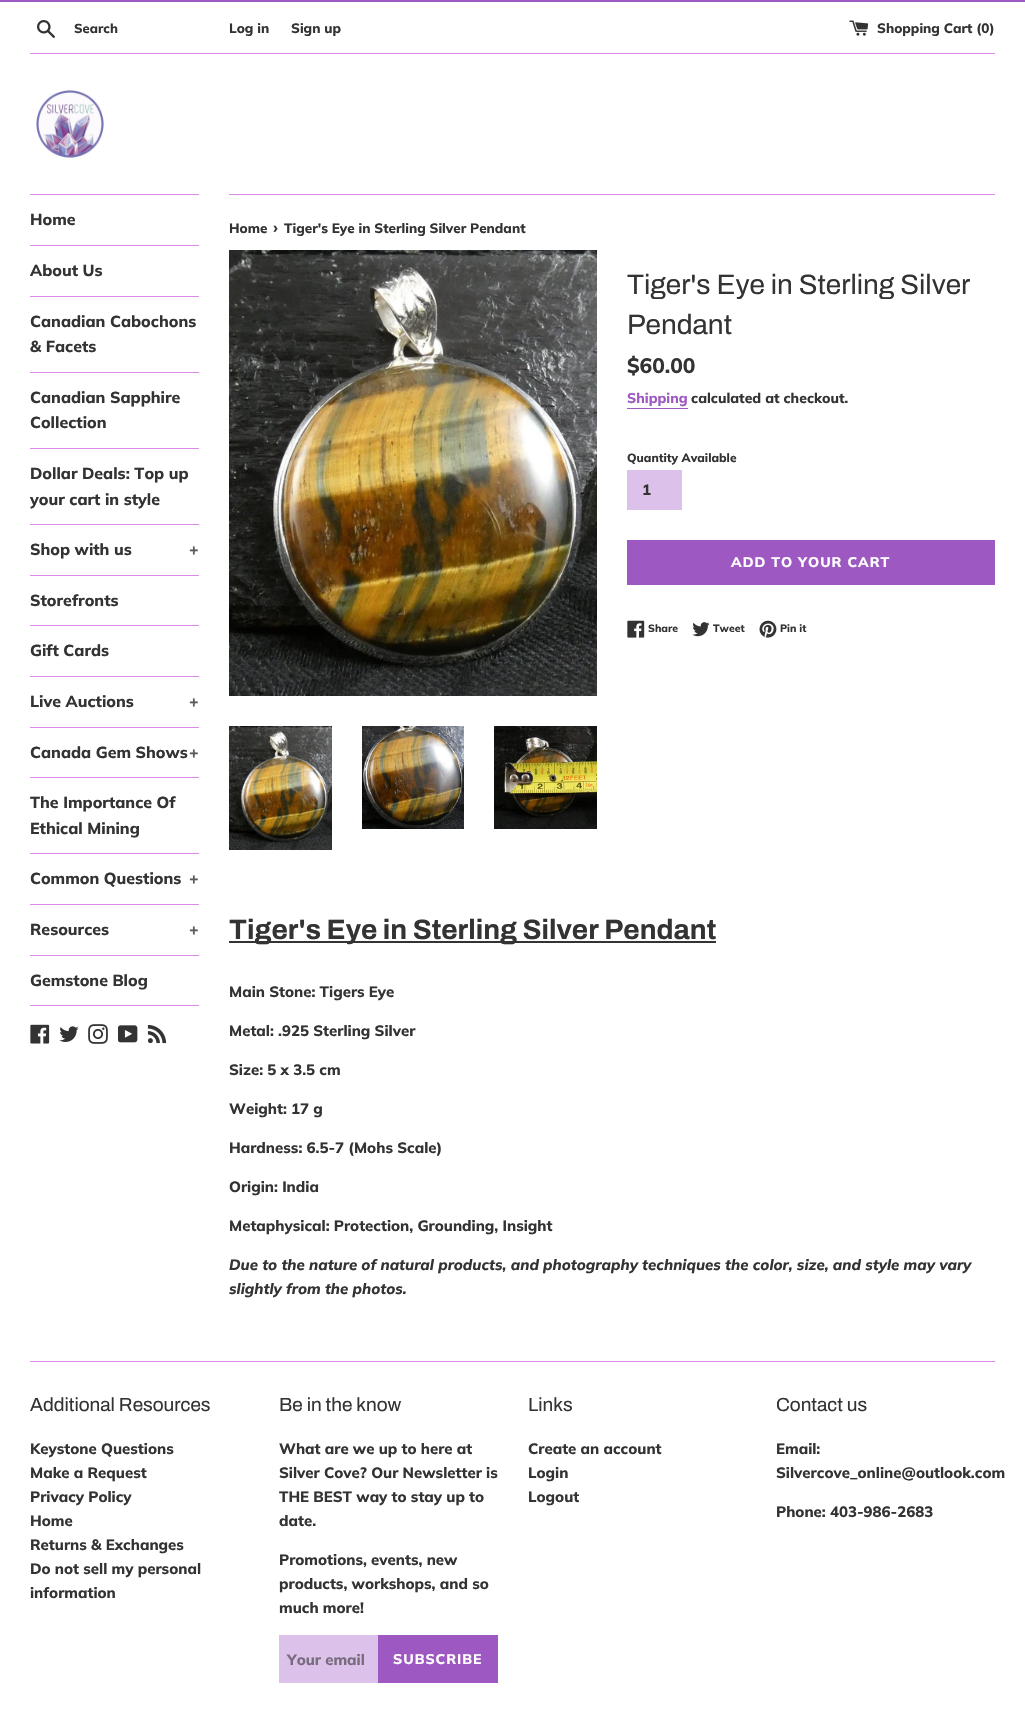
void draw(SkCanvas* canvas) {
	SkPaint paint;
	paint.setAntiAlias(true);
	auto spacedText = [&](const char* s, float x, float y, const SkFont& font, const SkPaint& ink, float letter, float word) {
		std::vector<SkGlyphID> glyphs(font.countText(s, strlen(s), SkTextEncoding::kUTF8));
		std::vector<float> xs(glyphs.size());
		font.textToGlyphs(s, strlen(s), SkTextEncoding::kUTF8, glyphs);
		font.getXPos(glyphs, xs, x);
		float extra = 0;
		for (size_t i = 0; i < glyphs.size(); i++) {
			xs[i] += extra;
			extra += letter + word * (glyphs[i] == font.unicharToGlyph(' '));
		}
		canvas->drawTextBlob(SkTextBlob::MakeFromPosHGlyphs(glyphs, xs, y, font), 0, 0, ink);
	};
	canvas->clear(0xffffffff);
	paint.setColor(0xff9d59c1);
	canvas->drawRect(SkRect::MakeXYWH(0, 0, 1025, 2), paint);
	canvas->drawImageRect(SkImages::DeferredFromEncodedData(SkData::MakeFromFileName("img1.png")), SkRect::MakeXYWH(37, 20, 18, 18), SkSamplingOptions());
	SkFont f1(fontMgr->matchFamilyStyle("Muli", SkFontStyle(800, SkFontStyle::kNormal_Width, SkFontStyle::kUpright_Slant)), 13);
	f1.setSubpixel(true);
	paint.setColor(0xff333333);
	canvas->drawString("Search", 74, 33, f1, paint);
	SkFont f2(fontMgr->matchFamilyStyle("Muli", SkFontStyle(800, SkFontStyle::kNormal_Width, SkFontStyle::kUpright_Slant)), 13.5);
	f2.setSubpixel(true);
	canvas->drawString("Log in", 229, 33, f2, paint);
	canvas->drawString("Sign up", 291, 33, f2, paint);
	canvas->drawImageRect(SkImages::DeferredFromEncodedData(SkData::MakeFromFileName("img2.png")), SkRect::MakeXYWH(849, 20, 20, 16), SkSamplingOptions());
	canvas->drawString("Shopping Cart (0)", 877, 33, f2, paint);
	paint.setColor(0xffda8ce6);
	canvas->drawRect(SkRect::MakeXYWH(30, 53, 965, 1), paint);
	canvas->drawImageRect(SkImages::DeferredFromEncodedData(SkData::MakeFromFileName("img3.png")), SkRect::MakeXYWH(36, 90, 68, 68), SkSamplingOptions());
	canvas->drawRect(SkRect::MakeXYWH(30, 194, 169, 1), paint);
	canvas->drawRect(SkRect::MakeXYWH(30, 245, 169, 1), paint);
	SkFont f3(fontMgr->matchFamilyStyle("Muli", SkFontStyle(800, SkFontStyle::kNormal_Width, SkFontStyle::kUpright_Slant)), 16);
	f3.setSubpixel(true);
	paint.setColor(0xff333333);
	canvas->drawString("Home", 30, 225, f3, paint);
	paint.setColor(0xffda8ce6);
	canvas->drawRect(SkRect::MakeXYWH(30, 296, 169, 1), paint);
	paint.setColor(0xff333333);
	canvas->drawString("About Us", 30, 276, f3, paint);
	paint.setColor(0xffda8ce6);
	canvas->drawRect(SkRect::MakeXYWH(30, 372, 169, 1), paint);
	paint.setColor(0xff333333);
	canvas->drawString("Canadian Cabochons", 30, 327, f3, paint);
	canvas->drawString("& Facets", 30, 352, f3, paint);
	paint.setColor(0xffda8ce6);
	canvas->drawRect(SkRect::MakeXYWH(30, 448, 169, 1), paint);
	paint.setColor(0xff333333);
	canvas->drawString("Canadian Sapphire", 30, 403, f3, paint);
	canvas->drawString("Collection", 30, 428, f3, paint);
	paint.setColor(0xffda8ce6);
	canvas->drawRect(SkRect::MakeXYWH(30, 524, 169, 1), paint);
	paint.setColor(0xff333333);
	canvas->drawString("Dollar Deals: Top up", 30, 479, f3, paint);
	canvas->drawString("your cart in style", 30, 505, f3, paint);
	paint.setColor(0xffda8ce6);
	canvas->drawRect(SkRect::MakeXYWH(30, 575, 169, 1), paint);
	paint.setColor(0xff333333);
	canvas->drawString("Shop with us", 30, 555, f3, paint);
	paint.setColor(0xff5c5c5c);
	canvas->drawString("+", 189, 555, f3, paint);
	paint.setColor(0xffda8ce6);
	canvas->drawRect(SkRect::MakeXYWH(30, 625, 169, 1), paint);
	paint.setColor(0xff333333);
	canvas->drawString("Storefronts", 30, 606, f3, paint);
	paint.setColor(0xffda8ce6);
	canvas->drawRect(SkRect::MakeXYWH(30, 676, 169, 1), paint);
	paint.setColor(0xff333333);
	canvas->drawString("Gift Cards", 30, 656, f3, paint);
	paint.setColor(0xffda8ce6);
	canvas->drawRect(SkRect::MakeXYWH(30, 727, 169, 1), paint);
	paint.setColor(0xff333333);
	canvas->drawString("Live Auctions", 30, 707, f3, paint);
	paint.setColor(0xff5c5c5c);
	canvas->drawString("+", 189, 707, f3, paint);
	paint.setColor(0xffda8ce6);
	canvas->drawRect(SkRect::MakeXYWH(30, 777, 169, 1), paint);
	paint.setColor(0xff333333);
	canvas->drawString("Canada Gem Shows", 30, 758, f3, paint);
	paint.setColor(0xff5c5c5c);
	canvas->drawString("+", 189, 758, f3, paint);
	paint.setColor(0xffda8ce6);
	canvas->drawRect(SkRect::MakeXYWH(30, 853, 169, 1), paint);
	paint.setColor(0xff333333);
	canvas->drawString("The Importance Of", 30, 808, f3, paint);
	canvas->drawString("Ethical Mining", 30, 834, f3, paint);
	paint.setColor(0xffda8ce6);
	canvas->drawRect(SkRect::MakeXYWH(30, 904, 169, 1), paint);
	paint.setColor(0xff333333);
	canvas->drawString("Common Questions", 30, 884, f3, paint);
	paint.setColor(0xff5c5c5c);
	canvas->drawString("+", 189, 884, f3, paint);
	paint.setColor(0xffda8ce6);
	canvas->drawRect(SkRect::MakeXYWH(30, 955, 169, 1), paint);
	paint.setColor(0xff333333);
	canvas->drawString("Resources", 30, 935, f3, paint);
	paint.setColor(0xff5c5c5c);
	canvas->drawString("+", 189, 935, f3, paint);
	paint.setColor(0xffda8ce6);
	canvas->drawRect(SkRect::MakeXYWH(30, 1005, 169, 1), paint);
	paint.setColor(0xff333333);
	canvas->drawString("Gemstone Blog", 30, 986, f3, paint);
	canvas->drawImageRect(SkImages::DeferredFromEncodedData(SkData::MakeFromFileName("img4.png")), SkRect::MakeXYWH(30, 1024, 20, 20), SkSamplingOptions());
	canvas->drawImageRect(SkImages::DeferredFromEncodedData(SkData::MakeFromFileName("img5.png")), SkRect::MakeXYWH(59, 1026, 20, 16), SkSamplingOptions());
	canvas->drawImageRect(SkImages::DeferredFromEncodedData(SkData::MakeFromFileName("img6.png")), SkRect::MakeXYWH(88, 1024, 20, 20), SkSamplingOptions());
	canvas->drawImageRect(SkImages::DeferredFromEncodedData(SkData::MakeFromFileName("img7.png")), SkRect::MakeXYWH(118, 1025, 20, 18), SkSamplingOptions());
	canvas->drawImageRect(SkImages::DeferredFromEncodedData(SkData::MakeFromFileName("img8.png")), SkRect::MakeXYWH(147, 1024, 20, 20), SkSamplingOptions());
	paint.setColor(0xffda8ce6);
	canvas->drawRect(SkRect::MakeXYWH(229, 194, 766, 1), paint);
	paint.setColor(0xff333333);
	canvas->drawString("Home", 229, 233, f2, paint);
	canvas->drawString("›", 273, 233, f3, paint);
	canvas->drawString("Tiger's Eye in Sterling Silver Pendant", 284, 233, f2, paint);
	canvas->drawImageRect(SkImages::DeferredFromEncodedData(SkData::MakeFromFileName("img9.png")), SkRect::MakeXYWH(229, 250, 368, 446), SkSamplingOptions());
	canvas->drawImageRect(SkImages::DeferredFromEncodedData(SkData::MakeFromFileName("img10.png")), SkRect::MakeXYWH(229, 726, 103, 124), SkSamplingOptions());
	canvas->drawImageRect(SkImages::DeferredFromEncodedData(SkData::MakeFromFileName("img11.png")), SkRect::MakeXYWH(362, 726, 102, 103), SkSamplingOptions());
	canvas->drawImageRect(SkImages::DeferredFromEncodedData(SkData::MakeFromFileName("img12.png")), SkRect::MakeXYWH(494, 726, 103, 103), SkSamplingOptions());
	SkFont f4(fontMgr->matchFamilyStyle("Archivo", SkFontStyle::Normal()), 28);
	f4.setSubpixel(true);
	canvas->drawString("Tiger's Eye in Sterling Silver", 627, 294, f4, paint);
	canvas->drawString("Pendant", 627, 334, f4, paint);
	SkFont f5(fontMgr->matchFamilyStyle("Muli", SkFontStyle(800, SkFontStyle::kNormal_Width, SkFontStyle::kUpright_Slant)), 21);
	f5.setSubpixel(true);
	canvas->drawString("$60.00", 627, 373, f5, paint);
	SkFont f6(fontMgr->matchFamilyStyle("Muli", SkFontStyle(800, SkFontStyle::kNormal_Width, SkFontStyle::kUpright_Slant)), 14);
	f6.setSubpixel(true);
	paint.setColor(0xff9d59c1);
	canvas->drawString("Shipping", 627, 403, f6, paint);
	canvas->drawRect(SkRect::MakeXYWH(627, 408, 61, 1), paint);
	paint.setColor(0xff333333);
	canvas->drawString("calculated at checkout.", 691, 403, f6, paint);
	SkFont f7(fontMgr->matchFamilyStyle("Muli", SkFontStyle(800, SkFontStyle::kNormal_Width, SkFontStyle::kUpright_Slant)), 12);
	f7.setSubpixel(true);
	canvas->drawString("Quantity Available", 627, 462, f7, paint);
	paint.setColor(0xffdcc1eb);
	canvas->drawRect(SkRect::MakeXYWH(627, 470, 55, 40), paint);
	SkFont f8(fontMgr->matchFamilyStyle("Muli", SkFontStyle(800, SkFontStyle::kNormal_Width, SkFontStyle::kUpright_Slant)), 15);
	f8.setSubpixel(true);
	paint.setColor(0xff333333);
	canvas->drawString("1", 642, 495, f8, paint);
	paint.setColor(0xff9d59c1);
	canvas->drawRect(SkRect::MakeXYWH(627, 540, 368, 45), paint);
	paint.setColor(0xffffffff);
	spacedText("ADD TO YOUR CART", 731, 567, f6, paint, 1, 0);
	canvas->drawImageRect(SkImages::DeferredFromEncodedData(SkData::MakeFromFileName("img13.png")), SkRect::MakeXYWH(627, 620, 18, 18), SkSamplingOptions());
	SkFont f9(fontMgr->matchFamilyStyle("Muli", SkFontStyle(800, SkFontStyle::kNormal_Width, SkFontStyle::kUpright_Slant)), 10.5);
	f9.setSubpixel(true);
	paint.setColor(0xff333333);
	canvas->drawString("Share", 648, 632, f9, paint);
	canvas->drawImageRect(SkImages::DeferredFromEncodedData(SkData::MakeFromFileName("img14.png")), SkRect::MakeXYWH(692, 622, 18, 15), SkSamplingOptions());
	canvas->drawString("Tweet", 713, 632, f9, paint);
	canvas->drawImageRect(SkImages::DeferredFromEncodedData(SkData::MakeFromFileName("img15.png")), SkRect::MakeXYWH(759, 620, 18, 18), SkSamplingOptions());
	canvas->drawString("Pin it", 780, 632, f9, paint);
	canvas->drawRect(SkRect::MakeXYWH(229, 941, 487, 2), paint);
	SkFont f10(fontMgr->matchFamilyStyle("Archivo", SkFontStyle::Bold()), 28);
	f10.setSubpixel(true);
	canvas->drawString("Tiger's Eye in Sterling Silver Pendant", 229, 939, f10, paint);
	canvas->drawString("Main Stone: Tigers Eye", 229, 997, f8, paint);
	canvas->drawString("Metal: .925 Sterling Silver", 229, 1036, f8, paint);
	canvas->drawString("Size: 5 x 3.5 cm", 229, 1075, f8, paint);
	canvas->drawString("Weight: 17 g", 229, 1114, f8, paint);
	canvas->drawString("Hardness: 6.5-7 (Mohs Scale)", 229, 1153, f8, paint);
	canvas->drawString("Origin: India", 229, 1192, f8, paint);
	canvas->drawString("Metaphysical: Protection, Grounding, Insight", 229, 1231, f8, paint);
	SkFont f11(fontMgr->matchFamilyStyle("Muli", SkFontStyle(800, SkFontStyle::kNormal_Width, SkFontStyle::kItalic_Slant)), 15);
	f11.setSubpixel(true);
	canvas->drawString("Due to the nature of natural products, and photography techniques the color, size, and style may vary", 229, 1270, f11, paint);
	canvas->drawString("slightly from the photos.", 229, 1294, f11, paint);
	paint.setColor(0xffda8ce6);
	canvas->drawRect(SkRect::MakeXYWH(30, 1361, 965, 1), paint);
	SkFont f12(fontMgr->matchFamilyStyle("Archivo", SkFontStyle::Normal()), 19);
	f12.setSubpixel(true);
	paint.setColor(0xff333333);
	canvas->drawString("Additional Resources", 30, 1411, f12, paint);
	canvas->drawString("Keystone Questions", 30, 1454, f8, paint);
	canvas->drawString("Make a Request", 30, 1478, f8, paint);
	canvas->drawString("Privacy Policy", 30, 1502, f8, paint);
	canvas->drawString("Home", 30, 1526, f8, paint);
	canvas->drawString("Returns & Exchanges", 30, 1550, f8, paint);
	canvas->drawString("Do not sell my personal", 30, 1574, f8, paint);
	canvas->drawString("information", 30, 1598, f8, paint);
	canvas->drawString("Be in the know", 279, 1411, f12, paint);
	canvas->drawString("What are we up to here at", 279, 1454, f8, paint);
	canvas->drawString("Silver Cove? Our Newsletter is", 279, 1478, f8, paint);
	canvas->drawString("THE BEST way to stay up to", 279, 1502, f8, paint);
	canvas->drawString("date.", 279, 1526, f8, paint);
	canvas->drawString("Promotions, events, new", 279, 1565, f8, paint);
	canvas->drawString("products, workshops, and so", 279, 1589, f8, paint);
	canvas->drawString("much more!", 279, 1613, f8, paint);
	paint.setColor(0xffdcc1eb);
	canvas->drawRect(SkRect::MakeXYWH(279, 1635, 99, 48), paint);
	paint.setColor(0xff776c7d);
	canvas->drawString("Your email", 287, 1665, f8, paint);
	paint.setColor(0xff9d59c1);
	canvas->drawRect(SkRect::MakeXYWH(378, 1635, 120, 48), paint);
	paint.setColor(0xffffffff);
	spacedText("SUBSCRIBE", 393, 1664, f6, paint, 1, 0);
	paint.setColor(0xff333333);
	canvas->drawString("Links", 528, 1411, f12, paint);
	canvas->drawString("Create an account", 528, 1454, f8, paint);
	canvas->drawString("Login", 528, 1478, f8, paint);
	canvas->drawString("Logout", 528, 1502, f8, paint);
	canvas->drawString("Contact us", 776, 1411, f12, paint);
	canvas->drawString("Email:", 776, 1454, f8, paint);
	canvas->drawString("Silvercove_online@outlook.com", 776, 1478, f8, paint);
	canvas->drawString("Phone: 403-986-2683", 776, 1517, f8, paint);
}
